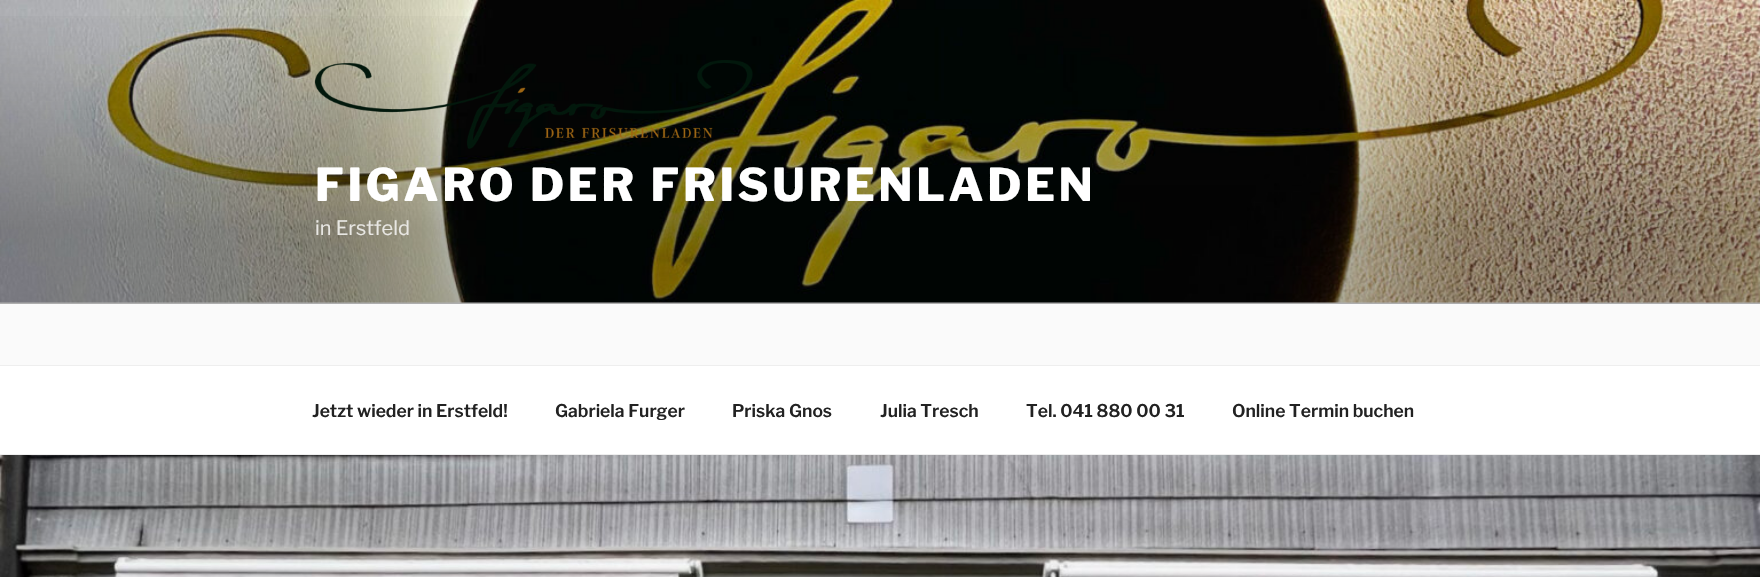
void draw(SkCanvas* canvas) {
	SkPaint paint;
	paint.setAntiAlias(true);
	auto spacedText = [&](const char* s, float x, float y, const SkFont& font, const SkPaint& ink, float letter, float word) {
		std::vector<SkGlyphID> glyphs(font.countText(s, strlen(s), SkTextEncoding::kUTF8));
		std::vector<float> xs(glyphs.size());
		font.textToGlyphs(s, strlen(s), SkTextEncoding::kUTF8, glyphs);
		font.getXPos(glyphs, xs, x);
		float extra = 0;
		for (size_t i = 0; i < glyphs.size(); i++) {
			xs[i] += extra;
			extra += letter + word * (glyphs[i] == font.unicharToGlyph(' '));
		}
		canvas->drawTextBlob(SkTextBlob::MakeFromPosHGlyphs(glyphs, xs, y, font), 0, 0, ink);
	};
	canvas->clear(0xffffffff);
	paint.setColor(0xfffafafa);
	canvas->drawRect(SkRect::MakeXYWH(0, 302, 1760, 63), paint);
	canvas->drawImageRect(SkImages::DeferredFromEncodedData(SkData::MakeFromFileName("img1.png")), SkRect::MakeXYWH(0, 0, 1760, 303), SkSamplingOptions());
	{
		const SkColor colors[] = {0x00000000, 0x4d000000, 0x4d000000};
		const float stops[] = {0, 0.75, 1};
		const SkPoint ends[] = {{880, 0}, {880, 304}};
		paint.setShader(SkGradientShader::MakeLinear(ends, colors, stops, 3, SkTileMode::kClamp));
		paint.setAlpha(255);
	}
	canvas->drawRect(SkRect::MakeXYWH(0, 16, 1760, 288), paint);
	canvas->drawImageRect(SkImages::DeferredFromEncodedData(SkData::MakeFromFileName("img2.png")), SkRect::MakeXYWH(315, 60, 438, 89), SkSamplingOptions());
	SkFont f1(fontMgr->matchFamilyStyle("Libre Franklin", SkFontStyle(100, SkFontStyle::kNormal_Width, SkFontStyle::kUpright_Slant)), 45);
	f1.setSubpixel(true);
	paint.setShader(nullptr);
	paint.setColor(0xffffffff);
	spacedText("FIGARO DER FRISURENLADEN", 315, 201, f1, paint, 3.6, 0);
	SkFont f2(fontMgr->matchFamilyStyle("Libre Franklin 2", SkFontStyle(100, SkFontStyle::kNormal_Width, SkFontStyle::kUpright_Slant)), 20);
	f2.setSubpixel(true);
	paint.setColor(0xffe8e7e3);
	canvas->drawString("in Erstfeld", 315, 235, f2, paint);
	paint.setColor(0xffeeeeee);
	canvas->drawRect(SkRect::MakeXYWH(0, 365, 1760, 1), paint);
	canvas->drawRect(SkRect::MakeXYWH(0, 454, 1760, 1), paint);
	SkFont f3(fontMgr->matchFamilyStyle("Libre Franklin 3", SkFontStyle(100, SkFontStyle::kNormal_Width, SkFontStyle::kUpright_Slant)), 17.5);
	f3.setSubpixel(true);
	paint.setColor(0xff222222);
	canvas->drawString("Jetzt wieder in Erstfeld!", 312, 417, f3, paint);
	canvas->drawString("Gabriela Furger", 555, 417, f3, paint);
	canvas->drawString("Priska Gnos", 732, 417, f3, paint);
	canvas->drawString("Julia Tresch", 880, 417, f3, paint);
	canvas->drawString("Tel. 041 880 00 31", 1026, 417, f3, paint);
	canvas->drawString("Online Termin buchen", 1232, 417, f3, paint);
	canvas->drawImageRect(SkImages::DeferredFromEncodedData(SkData::MakeFromFileName("img3.png")), SkRect::MakeXYWH(0, 455, 1760, 122), SkSamplingOptions());
}
